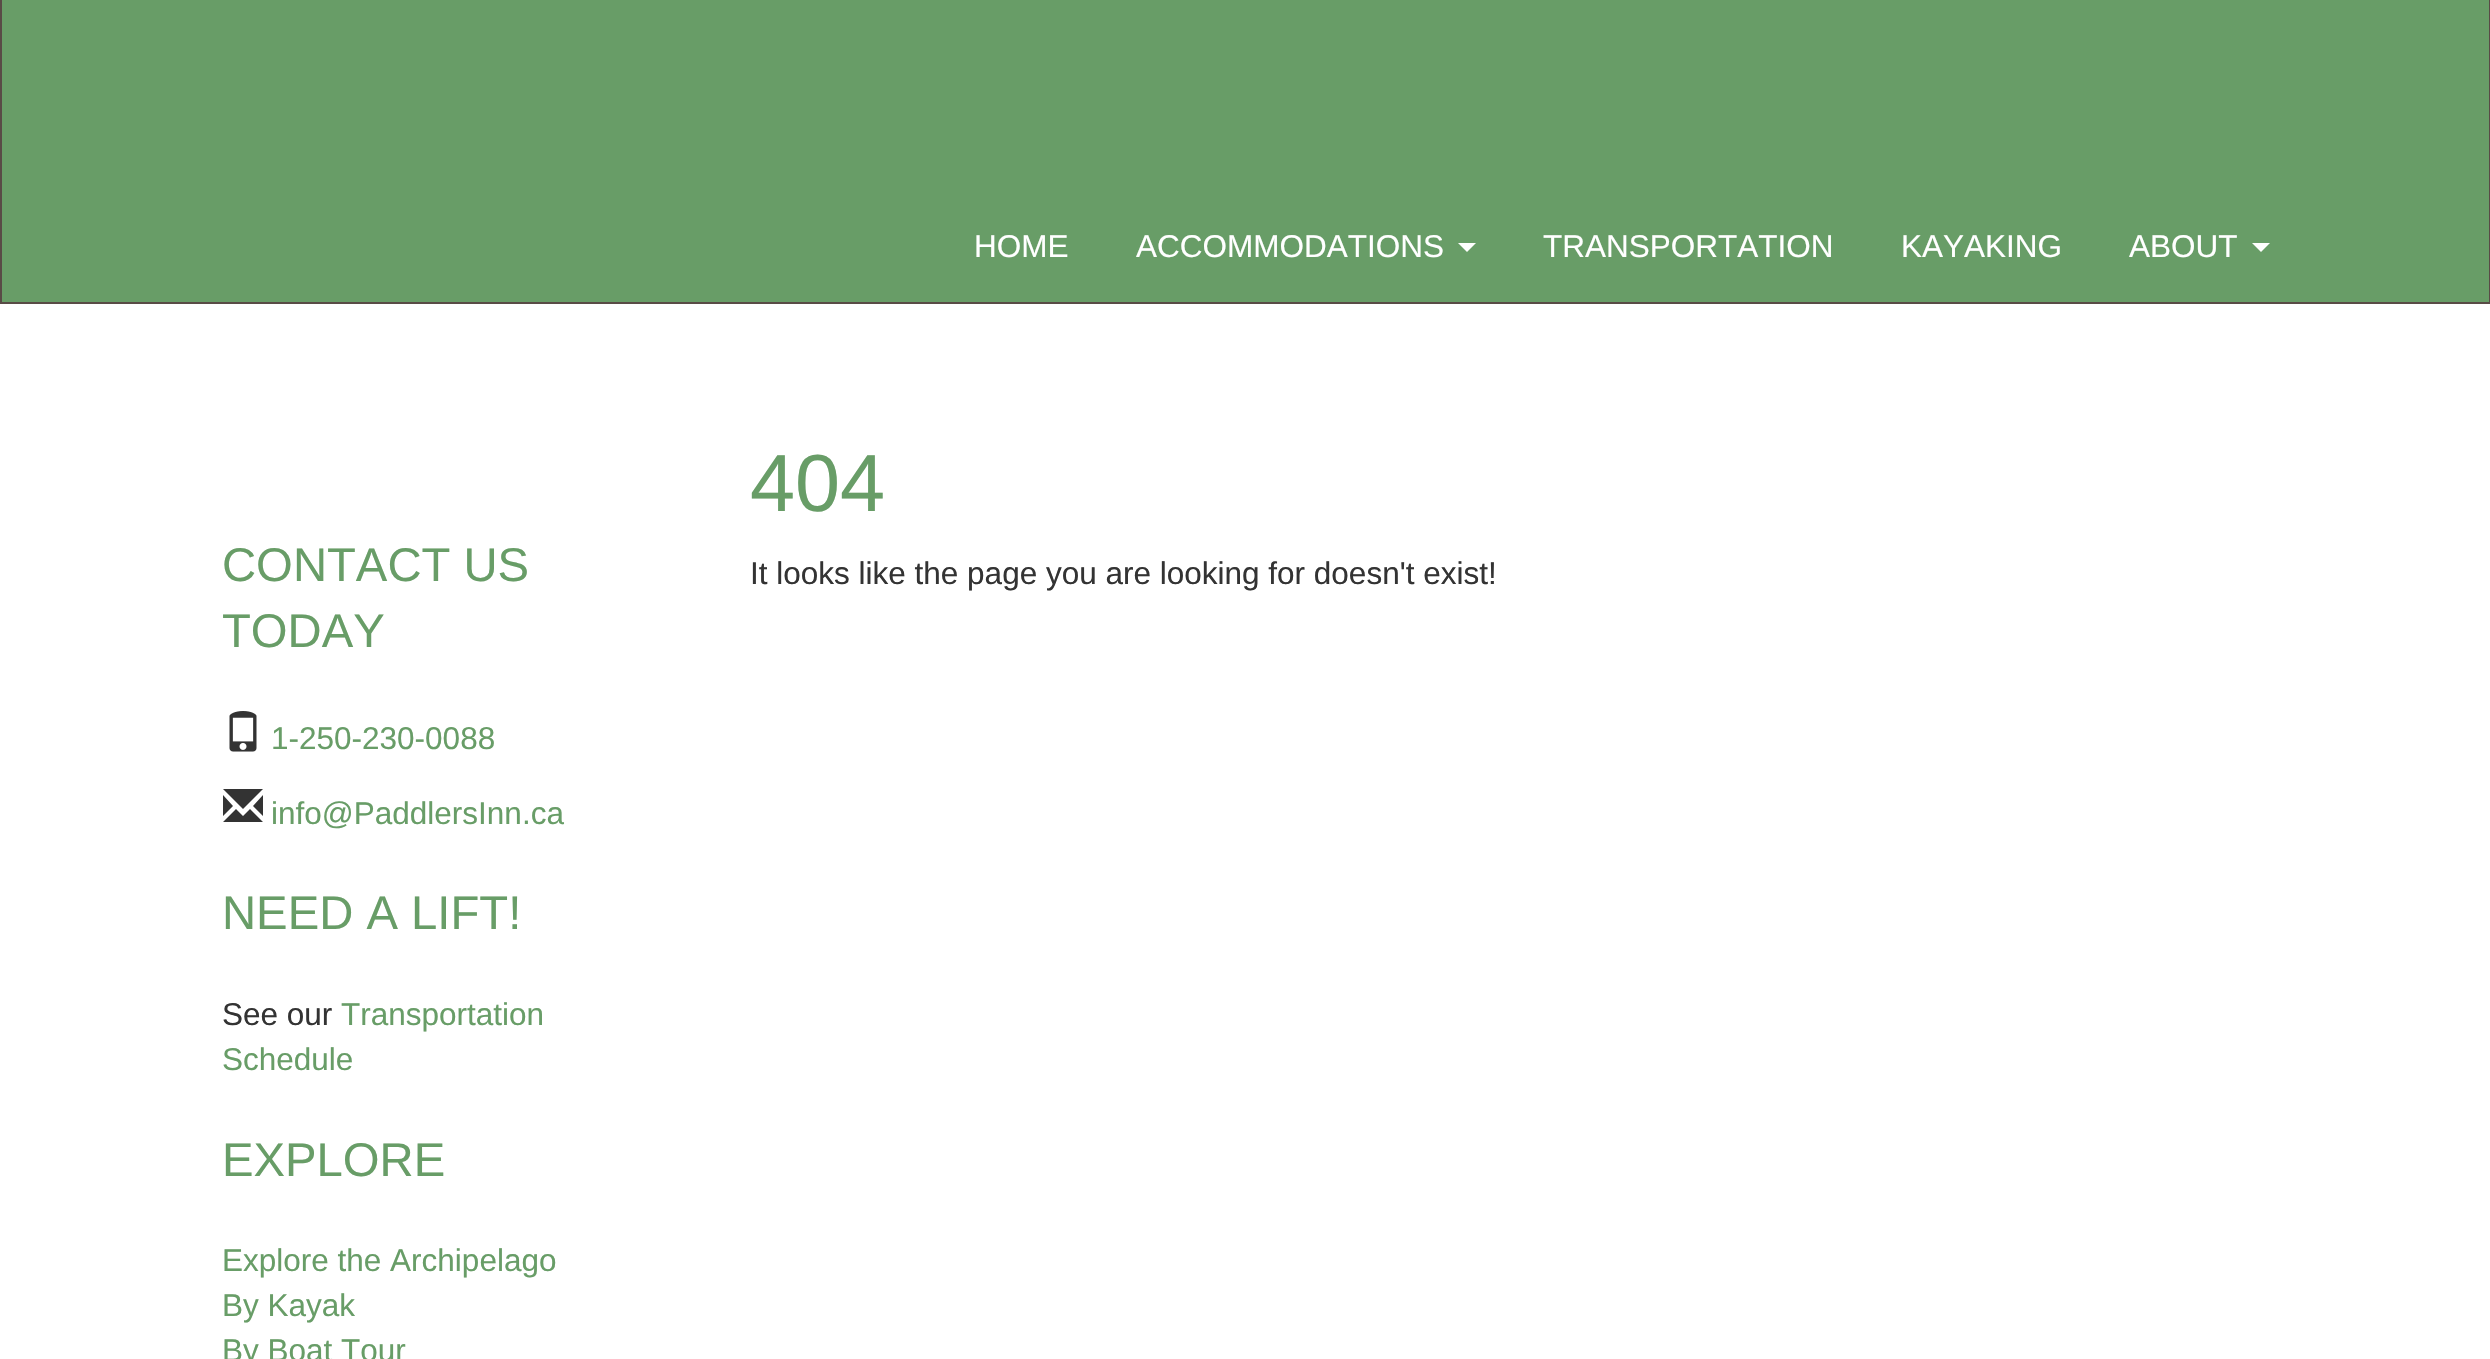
void draw(SkCanvas* canvas) {
	SkPaint paint;
	paint.setAntiAlias(true);
	auto svgPath = [&](const char* data, bool evenOdd = false) {
		SkPath result = *SkParsePath::FromSVGString(data);
		if (evenOdd) result.setFillType(SkPathFillType::kEvenOdd);
		return result;
	};
	canvas->clear(0xffffffff);
	paint.setColor(0xff689d67);
	canvas->drawRect(SkRect::MakeXYWH(1, -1, 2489, 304), paint);
	paint.setStroke(true);
	paint.setStrokeWidth(2);
	paint.setColor(0xff594b46);
	canvas->drawRect(SkRect::MakeXYWH(1, -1, 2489, 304), paint);
	SkFont f1(fontMgr->matchFamilyStyle("Liberation Sans", SkFontStyle::Normal()), 31.5);
	f1.setSubpixel(true);
	paint.setStroke(false);
	paint.setColor(0xffffffff);
	canvas->drawString("HOME", 974, 257, f1, paint);
	canvas->drawString("ACCOMMODATIONS", 1136, 257, f1, paint);
	canvas->drawPath(svgPath("M1458 243H1476L1467 252Z"), paint);
	canvas->drawString("TRANSPORTATION", 1543, 257, f1, paint);
	canvas->drawString("KAYAKING", 1901, 257, f1, paint);
	canvas->drawString("ABOUT", 2129, 257, f1, paint);
	canvas->drawPath(svgPath("M2252 243H2270L2261 252Z"), paint);
	SkFont f2(fontMgr->matchFamilyStyle("Liberation Sans", SkFontStyle::Normal()), 81);
	f2.setSubpixel(true);
	paint.setColor(0xff689d67);
	canvas->drawString("404", 750, 511, f2, paint);
	paint.setColor(0xff333333);
	canvas->drawString("It looks like the page you are looking for doesn't exist!", 750, 584, f1, paint);
	SkFont f3(fontMgr->matchFamilyStyle("Liberation Sans", SkFontStyle::Normal()), 47.25);
	f3.setSubpixel(true);
	paint.setColor(0xff689d67);
	canvas->drawString("CONTACT US", 222, 581, f3, paint);
	canvas->drawString("TODAY", 222, 647, f3, paint);
	canvas->drawImageRect(SkImages::DeferredFromEncodedData(SkData::MakeFromFileName("img1.png")), SkRect::MakeXYWH(229, 711, 28, 41), SkSamplingOptions());
	canvas->drawString("1-250-230-0088", 271, 749, f1, paint);
	paint.setColor(0xff333333);
	canvas->drawPath(svgPath("M223 822L236 809L243 816L250 809L263 822ZM223 816V795L233 806ZM223 789L243 809L263 789ZM253 806L263 795V816Z"), paint);
	paint.setColor(0xff689d67);
	canvas->drawString("info@PaddlersInn.ca", 271, 824, f1, paint);
	canvas->drawString("NEED A LIFT!", 222, 929, f3, paint);
	paint.setColor(0xff333333);
	canvas->drawString("See our", 222, 1025, f1, paint);
	paint.setColor(0xff689d67);
	canvas->drawString("Transportation", 341, 1025, f1, paint);
	canvas->drawString("Schedule", 222, 1070, f1, paint);
	canvas->drawString("EXPLORE", 222, 1176, f3, paint);
	canvas->drawString("Explore the Archipelago", 222, 1271, f1, paint);
	canvas->drawString("By Kayak", 222, 1316, f1, paint);
	canvas->drawString("By Boat Tour", 222, 1361, f1, paint);
}
